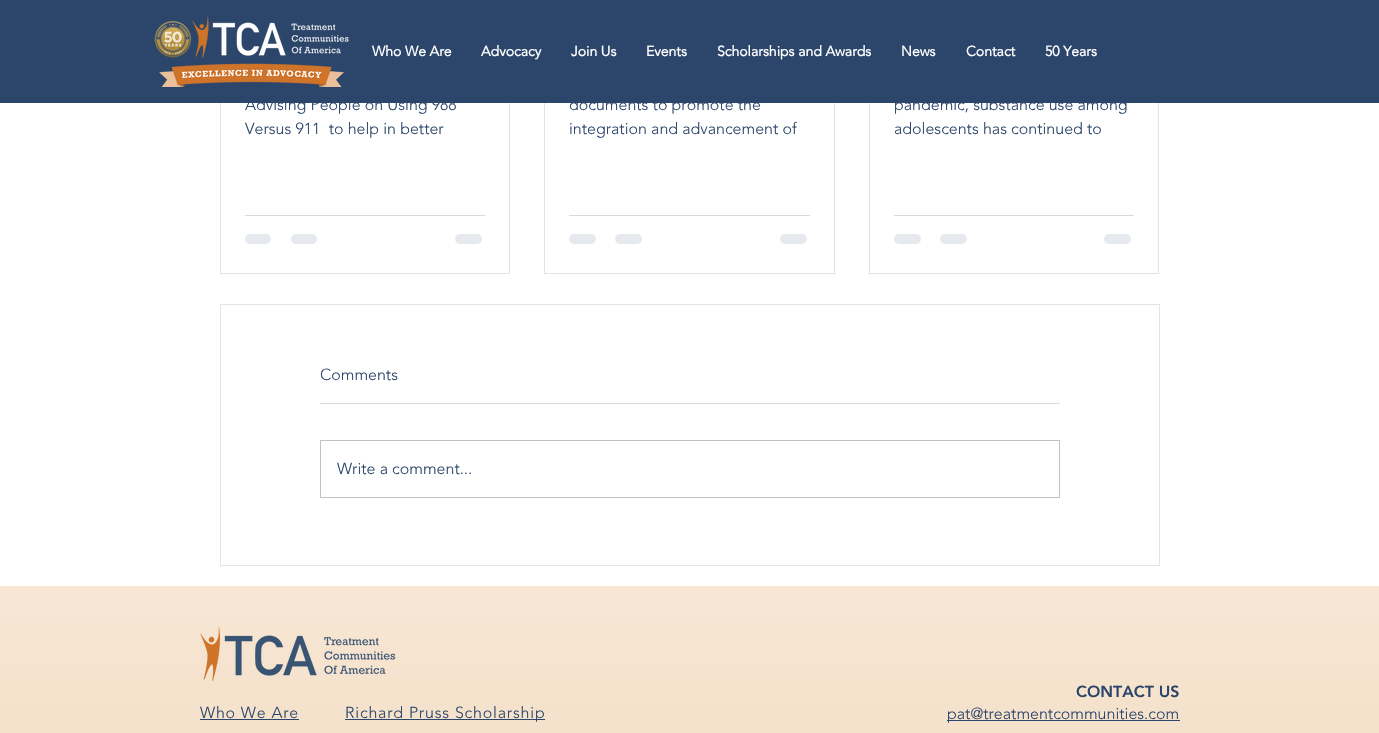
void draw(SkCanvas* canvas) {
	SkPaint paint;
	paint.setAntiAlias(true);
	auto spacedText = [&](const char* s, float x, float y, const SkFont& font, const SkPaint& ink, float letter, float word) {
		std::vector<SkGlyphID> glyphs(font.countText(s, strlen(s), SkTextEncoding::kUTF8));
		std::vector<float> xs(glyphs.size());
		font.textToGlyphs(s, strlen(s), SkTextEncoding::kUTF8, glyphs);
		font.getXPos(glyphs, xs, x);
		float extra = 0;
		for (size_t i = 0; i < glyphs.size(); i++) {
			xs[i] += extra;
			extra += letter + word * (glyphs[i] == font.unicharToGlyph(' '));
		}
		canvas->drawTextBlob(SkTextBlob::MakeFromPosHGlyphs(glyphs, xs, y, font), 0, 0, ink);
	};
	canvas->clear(0xffffffff);
	paint.setStroke(true);
	paint.setStrokeWidth(1);
	paint.setColor(0xffe4e4e4);
	canvas->drawRect(SkRect::MakeXYWH(220.5, -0.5, 289, 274), paint);
	canvas->drawRect(SkRect::MakeXYWH(544.5, -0.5, 290, 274), paint);
	canvas->drawRect(SkRect::MakeXYWH(869.5, -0.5, 289, 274), paint);
	paint.setStroke(false);
	paint.setColor(0xff2c456a);
	canvas->drawRect(SkRect::MakeXYWH(0, 0, 1379, 103), paint);
	canvas->drawImageRect(SkImages::DeferredFromEncodedData(SkData::MakeFromFileName("img1.png")), SkRect::MakeXYWH(154, 16, 195, 71), SkSamplingOptions());
	SkFont f1(fontMgr->matchFamilyStyle("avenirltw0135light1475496", SkFontStyle::Bold()), 14);
	f1.setSubpixel(true);
	paint.setColor(0xffffffff);
	canvas->drawString("Who We Are", 372, 56, f1, paint);
	canvas->drawString("Advocacy", 481, 56, f1, paint);
	canvas->drawString("Join Us", 571, 56, f1, paint);
	canvas->drawString("Events", 646, 56, f1, paint);
	canvas->drawString("Scholarships and Awards", 717, 56, f1, paint);
	canvas->drawString("News", 901, 56, f1, paint);
	canvas->drawString("Contact", 966, 56, f1, paint);
	canvas->drawString("50 Years", 1045, 56, f1, paint);
	SkFont f2(fontMgr->matchFamilyStyle("avenirltw0135light1475496", SkFontStyle(300, SkFontStyle::kNormal_Width, SkFontStyle::kUpright_Slant)), 16);
	f2.setSubpixel(true);
	paint.setColor(0xff2c456a);
	canvas->drawString("Advising People on Using 988", 245, 110, f2, paint);
	canvas->drawString("Versus 911  to help in better", 245, 134, f2, paint);
	paint.setColor(0xffd5dae1);
	canvas->drawRect(SkRect::MakeXYWH(245, 215, 240, 1), paint);
	paint.setColor(0xffe6e9ed);
	canvas->drawRoundRect(SkRect::MakeXYWH(245, 234, 26, 10), 5, 5, paint);
	canvas->drawRoundRect(SkRect::MakeXYWH(291, 234, 26, 10), 5, 5, paint);
	canvas->drawRoundRect(SkRect::MakeXYWH(455, 234, 27, 10), 5, 5, paint);
	paint.setColor(0xff2c456a);
	canvas->drawString("documents to promote the", 569, 110, f2, paint);
	canvas->drawString("integration and advancement of", 569, 134, f2, paint);
	paint.setColor(0xffd5dae1);
	canvas->drawRect(SkRect::MakeXYWH(569, 215, 241, 1), paint);
	paint.setColor(0xffe6e9ed);
	canvas->drawRoundRect(SkRect::MakeXYWH(569, 234, 27, 10), 5, 5, paint);
	canvas->drawRoundRect(SkRect::MakeXYWH(615, 234, 27, 10), 5, 5, paint);
	canvas->drawRoundRect(SkRect::MakeXYWH(780, 234, 27, 10), 5, 5, paint);
	paint.setColor(0xff2c456a);
	canvas->drawString("pandemic, substance use among", 894, 110, f2, paint);
	canvas->drawString("adolescents has continued to", 894, 134, f2, paint);
	paint.setColor(0xffd5dae1);
	canvas->drawRect(SkRect::MakeXYWH(894, 215, 240, 1), paint);
	paint.setColor(0xffe6e9ed);
	canvas->drawRoundRect(SkRect::MakeXYWH(894, 234, 27, 10), 5, 5, paint);
	canvas->drawRoundRect(SkRect::MakeXYWH(940, 234, 27, 10), 5, 5, paint);
	canvas->drawRoundRect(SkRect::MakeXYWH(1104, 234, 27, 10), 5, 5, paint);
	paint.setStroke(true);
	paint.setColor(0xffe4e4e4);
	canvas->drawRect(SkRect::MakeXYWH(220.5, 304.5, 939, 261), paint);
	paint.setStroke(false);
	paint.setColor(0xff2c456a);
	canvas->drawString("Comments", 320, 380, f2, paint);
	paint.setColor(0xffd5dae1);
	canvas->drawRect(SkRect::MakeXYWH(320, 403, 740, 1), paint);
	paint.setStroke(true);
	paint.setColor(0xffc1c1c1);
	canvas->drawRect(SkRect::MakeXYWH(320.5, 440.5, 739, 57), paint);
	paint.setStroke(false);
	paint.setColor(0xff2c456a);
	canvas->drawString("Write a comment...", 337, 474, f2, paint);
	paint.setColor(0xfff4dec5);
	canvas->drawRect(SkRect::MakeXYWH(0, 586, 1379, 147), paint);
	canvas->drawImageRect(SkImages::DeferredFromEncodedData(SkData::MakeFromFileName("img2.png")), SkRect::MakeXYWH(0, 586, 1379, 147), SkSamplingOptions());
	canvas->drawImageRect(SkImages::DeferredFromEncodedData(SkData::MakeFromFileName("img3.png")), SkRect::MakeXYWH(200, 626, 196, 55), SkSamplingOptions());
	paint.setColor(0xff2c456a);
	spacedText("Who We Are", 200, 718, f2, paint, 0.8, 0);
	canvas->drawRect(SkRect::MakeXYWH(200, 719, 99, 1), paint);
	canvas->drawRect(SkRect::MakeXYWH(345, 719, 200, 1), paint);
	spacedText("Richard Pruss Scholarship", 345, 718, f2, paint, 0.8, 0);
	SkFont f3(fontMgr->matchFamilyStyle("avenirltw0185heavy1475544", SkFontStyle(900, SkFontStyle::kNormal_Width, SkFontStyle::kUpright_Slant)), 16);
	f3.setSubpixel(true);
	canvas->drawString("CONTACT US", 1076, 697, f3, paint);
	canvas->drawRect(SkRect::MakeXYWH(947, 720, 233, 1), paint);
	canvas->drawString("pat@treatmentcommunities.com", 947, 719, f2, paint);
}
